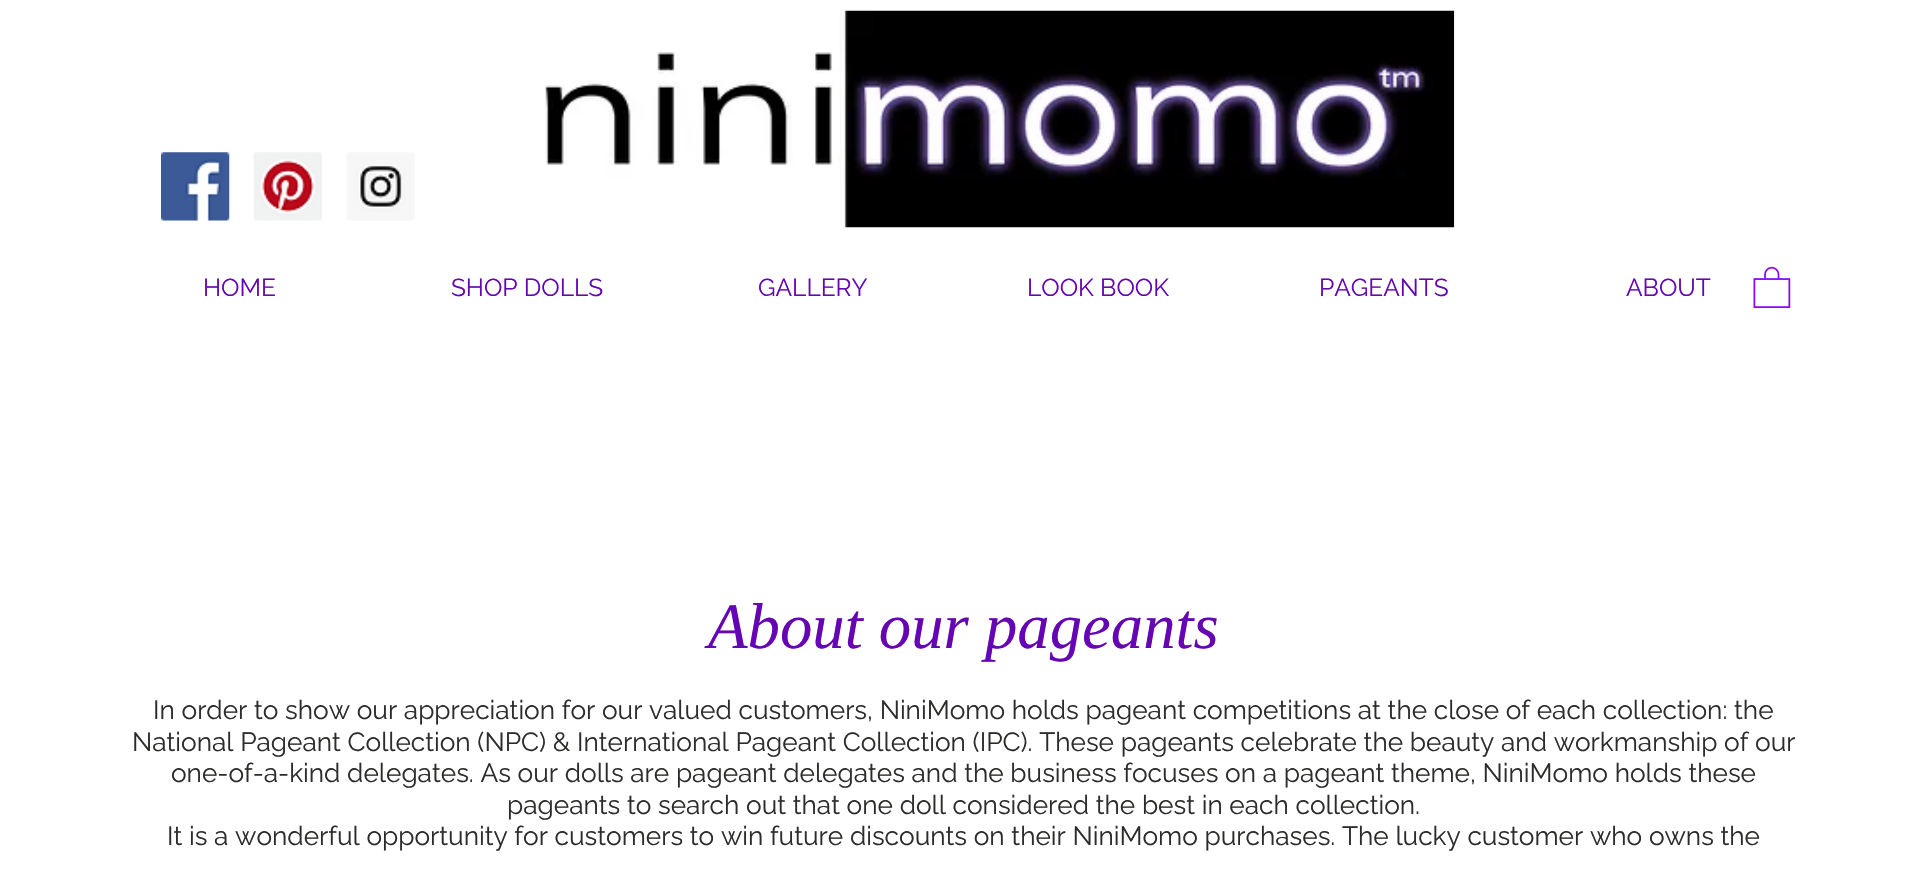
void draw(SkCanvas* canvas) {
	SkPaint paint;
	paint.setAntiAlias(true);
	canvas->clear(0xffffffff);
	canvas->drawImageRect(SkImages::DeferredFromEncodedData(SkData::MakeFromFileName("img1.png")), SkRect::MakeXYWH(161, 152, 69, 69), SkSamplingOptions());
	canvas->drawImageRect(SkImages::DeferredFromEncodedData(SkData::MakeFromFileName("img2.png")), SkRect::MakeXYWH(253, 152, 69, 69), SkSamplingOptions());
	canvas->drawImageRect(SkImages::DeferredFromEncodedData(SkData::MakeFromFileName("img3.png")), SkRect::MakeXYWH(346, 152, 69, 69), SkSamplingOptions());
	canvas->drawImageRect(SkImages::DeferredFromEncodedData(SkData::MakeFromFileName("img4.png")), SkRect::MakeXYWH(545, 10, 910, 218), SkSamplingOptions());
	SkFont f1(fontMgr->matchFamilyStyle("Raleway", SkFontStyle::Normal()), 24.5);
	f1.setSubpixel(true);
	paint.setColor(0xff6505b3);
	canvas->drawString("HOME", 203, 296, f1, paint);
	canvas->drawString("SHOP DOLLS", 451, 296, f1, paint);
	canvas->drawString("GALLERY", 758, 296, f1, paint);
	canvas->drawString("LOOK BOOK", 1027, 296, f1, paint);
	canvas->drawString("PAGEANTS", 1319, 296, f1, paint);
	canvas->drawString("ABOUT", 1626, 296, f1, paint);
	canvas->drawImageRect(SkImages::DeferredFromEncodedData(SkData::MakeFromFileName("img5.png")), SkRect::MakeXYWH(1753, 266, 38, 43), SkSamplingOptions());
	SkFont f2(fontMgr->matchFamilyStyle("Liberation Serif", SkFontStyle::Italic()), 64.75);
	f2.setSubpixel(true);
	canvas->drawString("About our pageants", 708, 648, f2, paint);
	SkFont f3(fontMgr->matchFamilyStyle("Raleway", SkFontStyle::Normal()), 26.25);
	f3.setSubpixel(true);
	paint.setColor(0xff2c2c2b);
	canvas->drawString("In order to show our appreciation for our valued customers, NiniMomo holds pageant competitions at the close of each collection: the", 153, 719, f3, paint);
	canvas->drawString("National Pageant Collection (NPC) & International Pageant Collection (IPC). These pageants celebrate the beauty and workmanship of our", 132, 751, f3, paint);
	canvas->drawString("one-of-a-kind delegates. As our dolls are pageant delegates and the business focuses on a pageant theme, NiniMomo holds these", 171, 782, f3, paint);
	canvas->drawString("pageants to search out that one doll considered the best in each collection.", 507, 814, f3, paint);
	canvas->drawString("It is a wonderful opportunity for customers to win future discounts on their NiniMomo purchases. The lucky customer who owns the", 167, 845, f3, paint);
}
